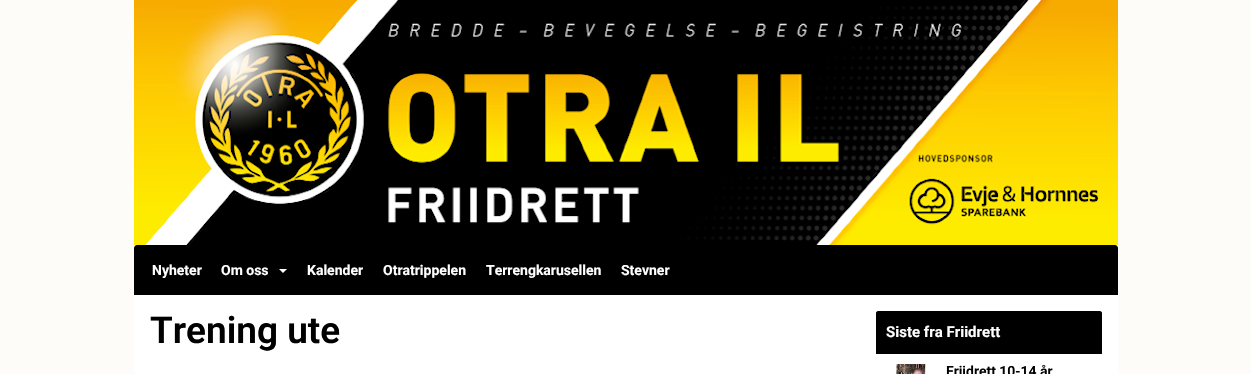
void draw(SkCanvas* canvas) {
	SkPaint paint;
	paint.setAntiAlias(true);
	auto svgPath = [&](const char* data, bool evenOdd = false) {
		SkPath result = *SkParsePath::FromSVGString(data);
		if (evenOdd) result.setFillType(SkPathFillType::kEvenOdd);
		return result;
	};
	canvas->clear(0xfffefcf9);
	canvas->drawImageRect(SkImages::DeferredFromEncodedData(SkData::MakeFromFileName("img1.png")), SkRect::MakeXYWH(134, 0, 984, 245), SkSamplingOptions());
	paint.setColor(0xff000000);
	canvas->drawPath(svgPath("M137 245H1115C1116.5 245 1118 246.5 1118 248V295H134V248C134 246.5 135.5 245 137 245Z"), paint);
	SkFont f1(fontMgr->matchFamilyStyle("Roboto", SkFontStyle::Bold()), 14);
	f1.setSubpixel(true);
	paint.setColor(0xffffffff);
	canvas->drawString("Nyheter", 152, 275, f1, paint);
	canvas->drawString("Om oss", 221, 275, f1, paint);
	canvas->drawPath(svgPath("M279 269H287L283 273Z"), paint);
	canvas->drawString("Kalender", 307, 275, f1, paint);
	canvas->drawString("Otratrippelen", 383, 275, f1, paint);
	canvas->drawString("Terrengkarusellen", 486, 275, f1, paint);
	canvas->drawString("Stevner", 621, 275, f1, paint);
	canvas->drawRect(SkRect::MakeXYWH(134, 295, 984, 79), paint);
	SkFont f2(fontMgr->matchFamilyStyle("Roboto", SkFontStyle(600, SkFontStyle::kNormal_Width, SkFontStyle::kUpright_Slant)), 37);
	f2.setSubpixel(true);
	paint.setColor(0xff000000);
	canvas->drawString("Trening ute", 150, 343, f2, paint);
	canvas->drawPath(svgPath("M878 311H1100C1101 311 1102 312 1102 313V354H876V313C876 312 877 311 878 311Z"), paint);
	SkFont f3(fontMgr->matchFamilyStyle("Roboto", SkFontStyle::Bold()), 15);
	f3.setSubpixel(true);
	paint.setColor(0xffffffff);
	canvas->drawString("Siste fra Friidrett", 886, 337, f3, paint);
	canvas->drawImageRect(SkImages::DeferredFromEncodedData(SkData::MakeFromFileName("img2.png")), SkRect::MakeXYWH(896, 364, 30, 10), SkSamplingOptions());
	SkFont f4(fontMgr->matchFamilyStyle("Roboto", SkFontStyle(600, SkFontStyle::kNormal_Width, SkFontStyle::kUpright_Slant)), 14);
	f4.setSubpixel(true);
	paint.setColor(0xff000000);
	canvas->drawString("Friidrett 10-14 år", 946, 376, f4, paint);
}
